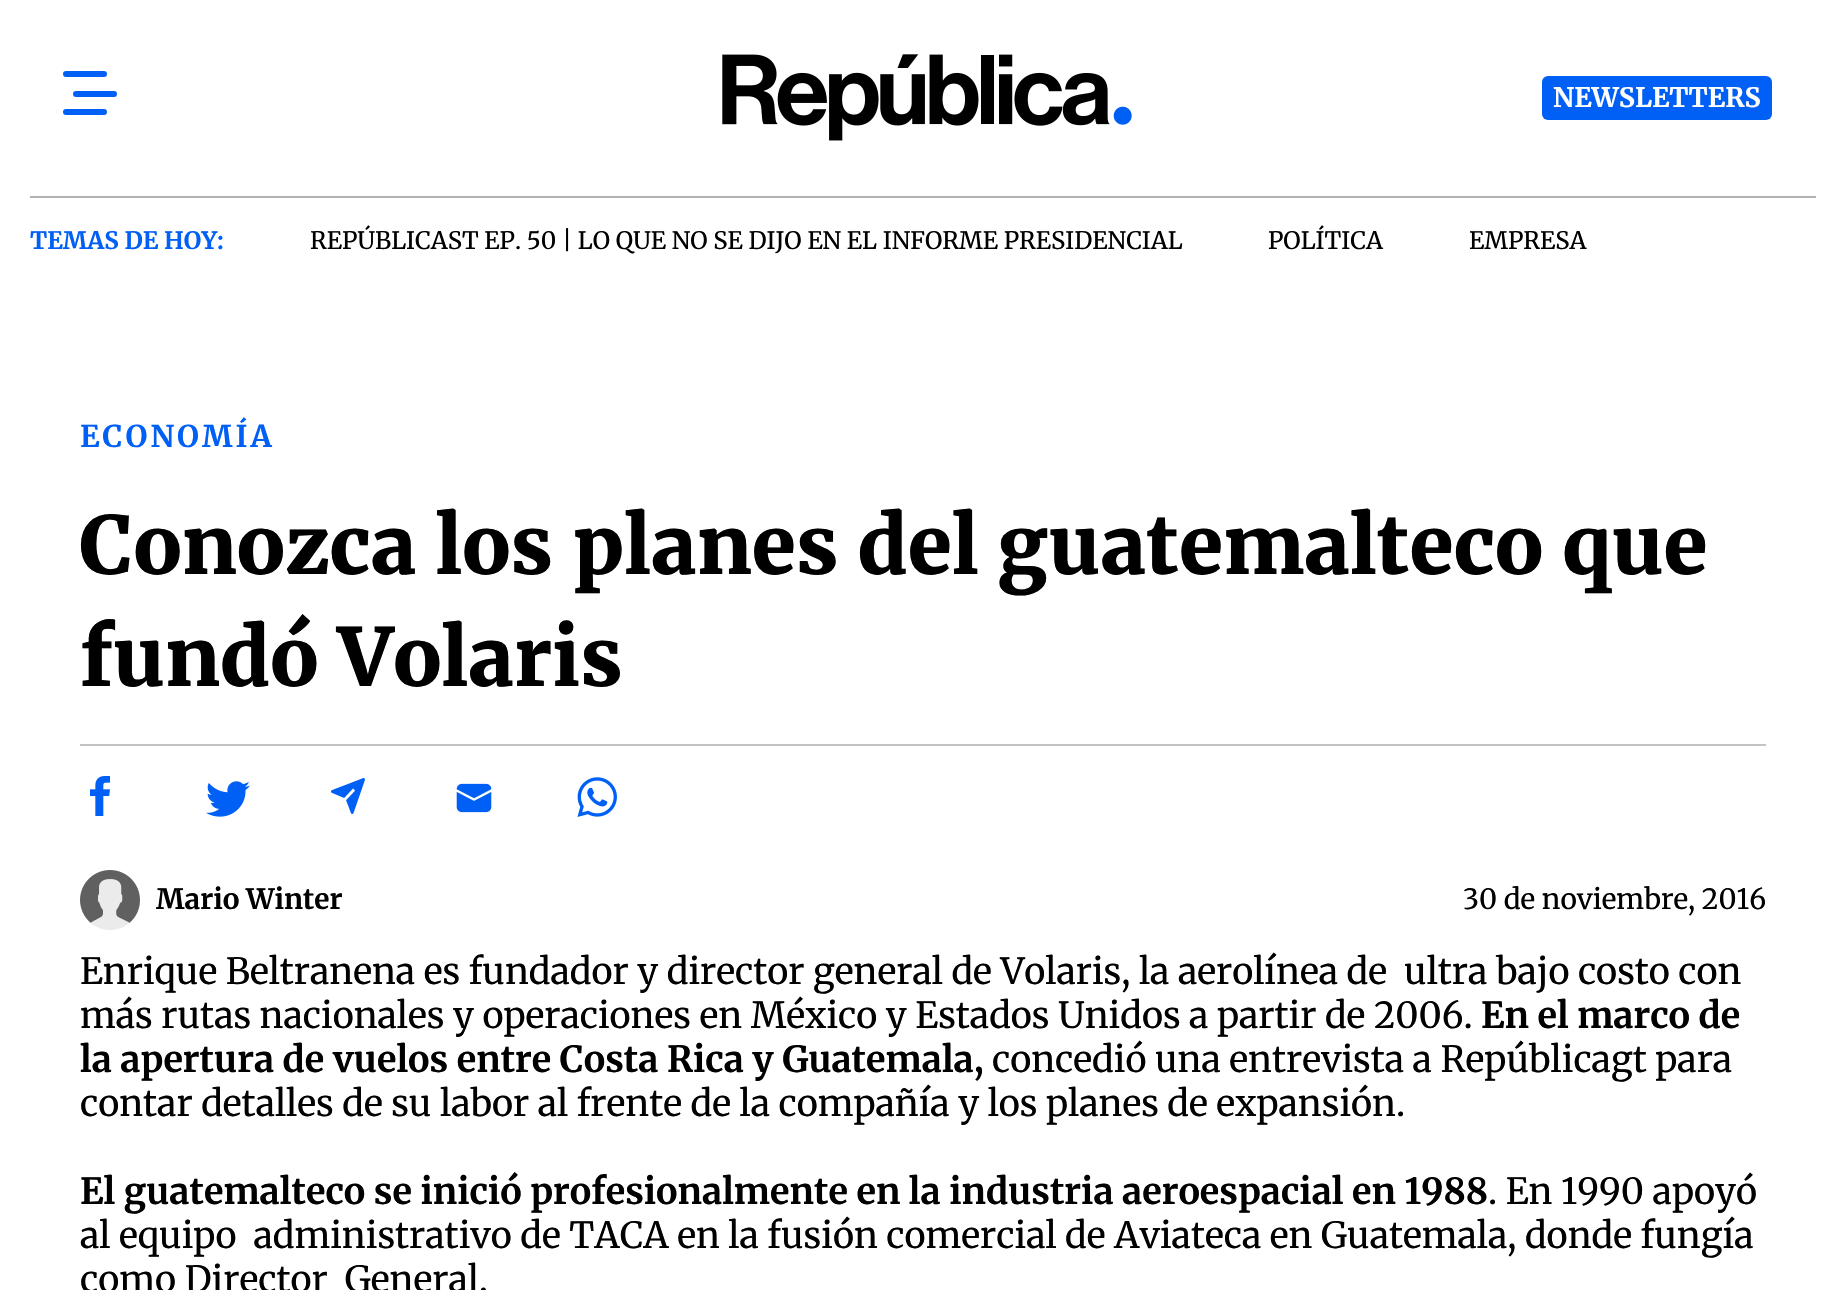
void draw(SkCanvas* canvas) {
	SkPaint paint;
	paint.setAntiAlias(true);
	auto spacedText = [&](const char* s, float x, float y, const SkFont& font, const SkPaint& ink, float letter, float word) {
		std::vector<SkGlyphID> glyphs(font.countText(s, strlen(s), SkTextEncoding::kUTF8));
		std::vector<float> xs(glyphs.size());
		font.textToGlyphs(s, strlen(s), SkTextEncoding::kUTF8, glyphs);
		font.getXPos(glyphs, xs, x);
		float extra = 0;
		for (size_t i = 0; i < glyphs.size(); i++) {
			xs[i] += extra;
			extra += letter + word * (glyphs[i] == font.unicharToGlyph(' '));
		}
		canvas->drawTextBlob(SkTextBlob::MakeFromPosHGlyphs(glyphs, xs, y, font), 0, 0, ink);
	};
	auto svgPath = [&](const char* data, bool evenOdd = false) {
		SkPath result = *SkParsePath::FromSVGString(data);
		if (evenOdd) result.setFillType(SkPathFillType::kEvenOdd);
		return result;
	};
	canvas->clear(0xffffffff);
	paint.setStroke(true);
	paint.setStrokeWidth(6);
	paint.setStrokeCap(SkPaint::kRound_Cap);
	paint.setStrokeJoin(SkPaint::kRound_Join);
	paint.setColor(0xff005ff5);
	canvas->drawPath(svgPath("M66 74H104M66 112H104M76 94H114"), paint);
	canvas->drawImageRect(SkImages::DeferredFromEncodedData(SkData::MakeFromFileName("img1.png")), SkRect::MakeXYWH(722, 54, 410, 87), SkSamplingOptions());
	paint.setStroke(false);
	canvas->drawRoundRect(SkRect::MakeXYWH(1542, 76, 230, 44), 6, 6, paint);
	SkFont f1(fontMgr->matchFamilyStyle("Merriweather", SkFontStyle::Bold()), 26.75);
	f1.setSubpixel(true);
	paint.setColor(0xffffffff);
	canvas->drawString("NEWSLETTERS", 1553, 107, f1, paint);
	paint.setColor(0xffb1b1b1);
	canvas->drawRect(SkRect::MakeXYWH(30, 196, 1786, 2), paint);
	SkFont f2(fontMgr->matchFamilyStyle("Merriweather", SkFontStyle::Bold()), 24);
	f2.setSubpixel(true);
	paint.setColor(0xff005ff5);
	canvas->drawString("TEMAS DE HOY:", 30, 249, f2, paint);
	SkFont f3(fontMgr->matchFamilyStyle("Merriweather", SkFontStyle::Normal()), 24);
	f3.setSubpixel(true);
	paint.setColor(0xff000000);
	canvas->drawString("REPÚBLICAST EP. 50 | LO QUE NO SE DIJO EN EL INFORME PRESIDENCIAL", 310, 249, f3, paint);
	canvas->drawString("POLÍTICA", 1268, 249, f3, paint);
	canvas->drawString("EMPRESA", 1469, 249, f3, paint);
	SkFont f4(fontMgr->matchFamilyStyle("Merriweather", SkFontStyle::Bold()), 30);
	f4.setSubpixel(true);
	paint.setColor(0xff005ff5);
	spacedText("ECONOMÍA", 80, 447, f4, paint, 3, 0);
	SkFont f5(fontMgr->matchFamilyStyle("Merriweather", SkFontStyle(900, SkFontStyle::kNormal_Width, SkFontStyle::kUpright_Slant)), 80);
	f5.setSubpixel(true);
	paint.setColor(0xff000000);
	canvas->drawString("Conozca los planes del guatemalteco que", 80, 574, f5, paint);
	canvas->drawString("fundó Volaris", 80, 686, f5, paint);
	paint.setColor(0xffc4c2c2);
	canvas->drawRect(SkRect::MakeXYWH(80, 744, 1686, 2), paint);
	canvas->drawImageRect(SkImages::DeferredFromEncodedData(SkData::MakeFromFileName("img2.png")), SkRect::MakeXYWH(90, 776, 20, 40), SkSamplingOptions());
	canvas->drawImageRect(SkImages::DeferredFromEncodedData(SkData::MakeFromFileName("img3.png")), SkRect::MakeXYWH(206, 781, 44, 36), SkSamplingOptions());
	canvas->drawImageRect(SkImages::DeferredFromEncodedData(SkData::MakeFromFileName("img4.png")), SkRect::MakeXYWH(331, 778, 34, 36), SkSamplingOptions());
	canvas->drawImageRect(SkImages::DeferredFromEncodedData(SkData::MakeFromFileName("img5.png")), SkRect::MakeXYWH(456, 783, 36, 30), SkSamplingOptions());
	canvas->drawImageRect(SkImages::DeferredFromEncodedData(SkData::MakeFromFileName("img6.png")), SkRect::MakeXYWH(577, 777, 40, 40), SkSamplingOptions());
	canvas->drawImageRect(SkImages::DeferredFromEncodedData(SkData::MakeFromFileName("img7.png")), SkRect::MakeXYWH(80, 870, 60, 60), SkSamplingOptions());
	SkFont f6(fontMgr->matchFamilyStyle("Merriweather", SkFontStyle::Bold()), 28);
	f6.setSubpixel(true);
	paint.setColor(0xff000000);
	canvas->drawString("Mario Winter", 156, 909, f6, paint);
	SkFont f7(fontMgr->matchFamilyStyle("Merriweather", SkFontStyle::Normal()), 28);
	f7.setSubpixel(true);
	canvas->drawString("30 de noviembre, 2016", 1463, 909, f7, paint);
	SkFont f8(fontMgr->matchFamilyStyle("Merriweather", SkFontStyle::Normal()), 36);
	f8.setSubpixel(true);
	canvas->drawString("Enrique Beltranena es fundador y director general de Volaris, la aerolínea de  ultra bajo costo con", 80, 984, f8, paint);
	canvas->drawString("más rutas nacionales y operaciones en México y Estados Unidos a partir de 2006.", 80, 1028, f8, paint);
	SkFont f9(fontMgr->matchFamilyStyle("Merriweather", SkFontStyle::Bold()), 36);
	f9.setSubpixel(true);
	canvas->drawString("En el marco de", 1481, 1028, f9, paint);
	canvas->drawString("la apertura de vuelos entre Costa Rica y Guatemala,", 80, 1072, f9, paint);
	canvas->drawString("concedió una entrevista a Repúblicagt para", 992, 1072, f8, paint);
	canvas->drawString("contar detalles de su labor al frente de la compañía y los planes de expansión.", 80, 1116, f8, paint);
	canvas->drawString("El guatemalteco se inició profesionalmente en la industria aeroespacial en 1988", 80, 1204, f9, paint);
	canvas->drawString(". En 1990 apoyó", 1488, 1204, f8, paint);
	canvas->drawString("al equipo  administrativo de TACA en la fusión comercial de Aviateca en Guatemala, donde fungía", 80, 1248, f8, paint);
	canvas->drawString("como Director  General.", 80, 1292, f8, paint);
}
